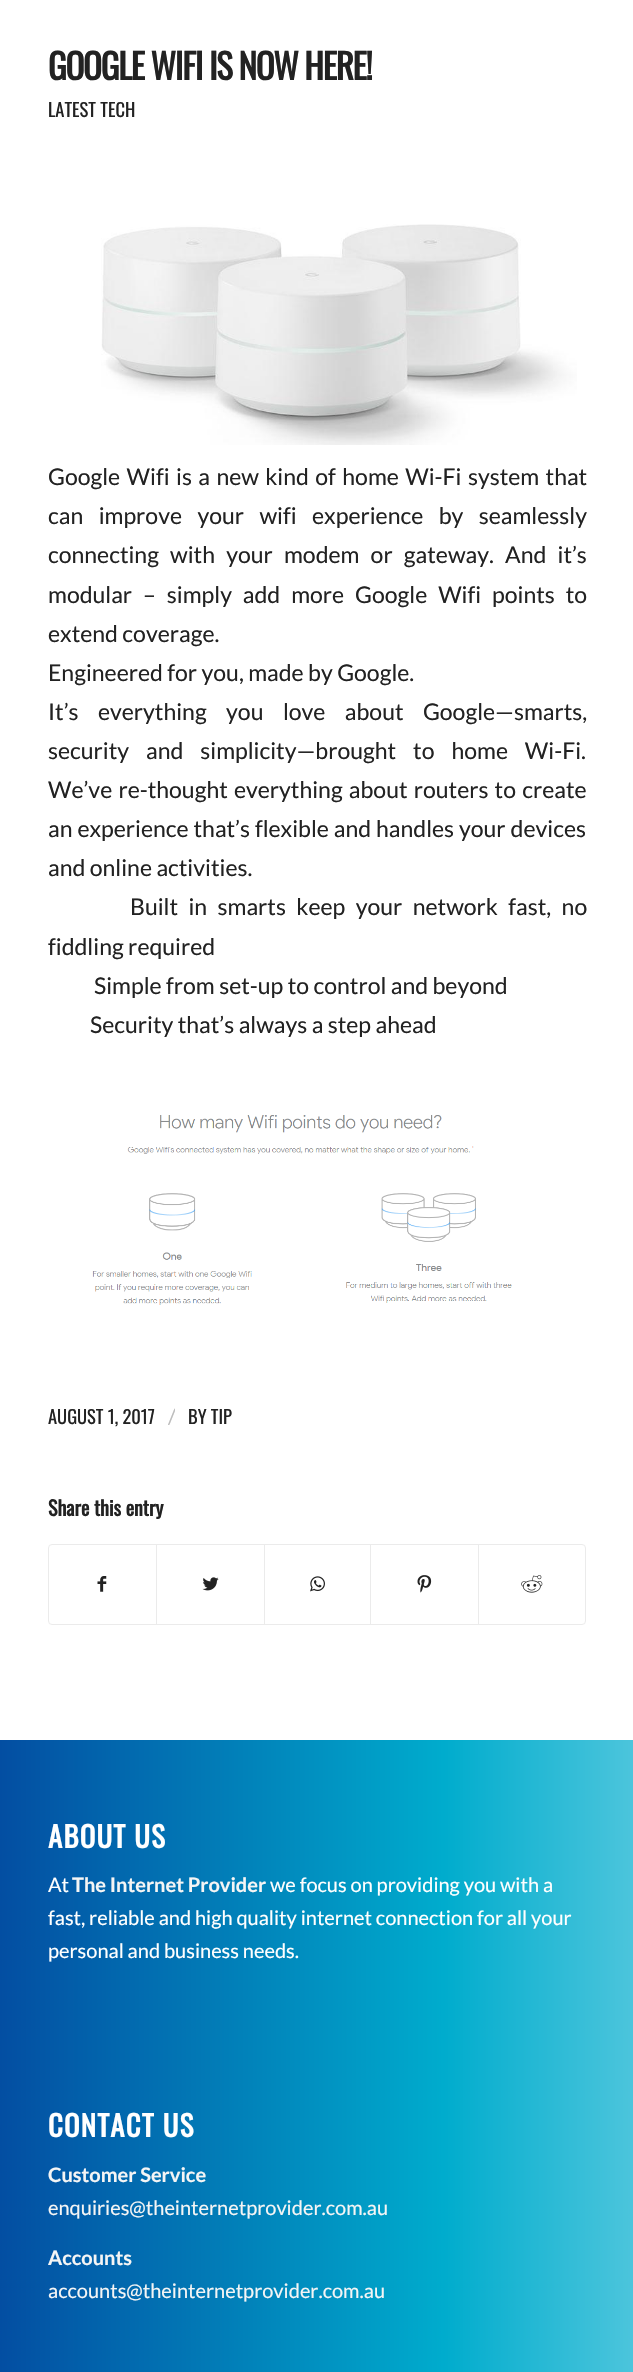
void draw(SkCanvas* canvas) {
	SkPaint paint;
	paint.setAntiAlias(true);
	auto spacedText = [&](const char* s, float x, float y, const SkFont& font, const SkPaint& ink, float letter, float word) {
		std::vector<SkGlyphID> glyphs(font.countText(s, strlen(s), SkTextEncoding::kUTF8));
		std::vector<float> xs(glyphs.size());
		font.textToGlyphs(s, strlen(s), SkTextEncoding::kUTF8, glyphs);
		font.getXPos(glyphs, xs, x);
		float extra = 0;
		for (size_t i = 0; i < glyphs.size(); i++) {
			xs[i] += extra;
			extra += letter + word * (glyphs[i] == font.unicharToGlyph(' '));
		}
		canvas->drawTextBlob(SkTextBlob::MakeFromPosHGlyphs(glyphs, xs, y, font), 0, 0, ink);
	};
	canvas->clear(0xffffffff);
	SkFont f1(fontMgr->matchFamilyStyle("Oswald", SkFontStyle::Bold()), 35);
	f1.setSubpixel(true);
	paint.setColor(0xff222222);
	spacedText("GOOGLE WIFI IS NOW HERE!", 48, 80, f1, paint, -1.25, 0);
	SkFont f2(fontMgr->matchFamilyStyle("Oswald", SkFontStyle::Normal()), 18.5);
	f2.setSubpixel(true);
	canvas->drawString("LATEST TECH", 48, 117, f2, paint);
	canvas->drawImageRect(SkImages::DeferredFromEncodedData(SkData::MakeFromFileName("img1.png")), SkRect::MakeXYWH(101, 224, 476, 221), SkSamplingOptions());
	SkFont f3(fontMgr->matchFamilyStyle("Lato", SkFontStyle::Normal()), 23);
	f3.setSubpixel(true);
	spacedText("Google Wifi is a new kind of home Wi-Fi system that", 48, 485, f3, paint, 0, 2);
	spacedText("can improve your wifi experience by seamlessly", 48, 524, f3, paint, 0, 11);
	spacedText("connecting with your modem or gateway. And it’s", 48, 563, f3, paint, 0, 6.75);
	spacedText("modular – simply add more Google Wifi points to", 48, 603, f3, paint, 0, 6.5);
	canvas->drawString("extend coverage.", 48, 642, f3, paint);
	canvas->drawString("Engineered for you, made by Google.", 48, 681, f3, paint);
	spacedText("It’s everything you love about Google—smarts,", 48, 720, f3, paint, 0, 15);
	spacedText("security and simplicity—brought to home Wi-Fi.", 48, 759, f3, paint, 0, 12.5);
	spacedText("We’ve re-thought everything about routers to create", 48, 798, f3, paint, 0, 1.75);
	spacedText("an experience that’s flexible and handles your devices", 48, 837, f3, paint, 0, 0.5);
	canvas->drawString("and online activities.", 48, 876, f3, paint);
	spacedText("Built in smarts keep your network fast, no", 130, 915, f3, paint, 0, 6);
	canvas->drawString("fiddling required", 48, 955, f3, paint);
	canvas->drawString("Simple from set-up to control and beyond", 94, 994, f3, paint);
	canvas->drawString("Security that’s always a step ahead", 90, 1033, f3, paint);
	canvas->drawImageRect(SkImages::DeferredFromEncodedData(SkData::MakeFromFileName("img2.png")), SkRect::MakeXYWH(92, 1115, 420, 190), SkSamplingOptions());
	canvas->drawString("AUGUST 1, 2017", 48, 1424, f2, paint);
	canvas->save();
	canvas->clipRect(SkRect::MakeXYWH(168, 1398, 7, 40));
	SkFont f4(fontMgr->matchFamilyStyle("Lato", SkFontStyle::Normal()), 21);
	f4.setSubpixel(true);
	paint.setColor(0xffbdbdbd);
	canvas->drawString("/", 168, 1424, f4, paint);
	canvas->restore();
	paint.setColor(0xff222222);
	canvas->drawString("BY TIP", 188, 1424, f2, paint);
	SkFont f5(fontMgr->matchFamilyStyle("Oswald", SkFontStyle::Bold()), 20);
	f5.setSubpixel(true);
	canvas->drawString("Share this entry", 48, 1516, f5, paint);
	paint.setStroke(true);
	paint.setStrokeWidth(1);
	paint.setColor(0xffebebeb);
	canvas->drawRoundRect(SkRect::MakeXYWH(48.5, 1544.5, 537, 80), 3.5, 3.5, paint);
	canvas->drawImageRect(SkImages::DeferredFromEncodedData(SkData::MakeFromFileName("img3.png")), SkRect::MakeXYWH(97, 1576, 10, 16), SkSamplingOptions());
	paint.setStroke(false);
	canvas->drawRect(SkRect::MakeXYWH(156, 1545, 1, 79), paint);
	canvas->drawImageRect(SkImages::DeferredFromEncodedData(SkData::MakeFromFileName("img4.png")), SkRect::MakeXYWH(202, 1577, 17, 14), SkSamplingOptions());
	canvas->drawRect(SkRect::MakeXYWH(264, 1545, 1, 79), paint);
	canvas->drawImageRect(SkImages::DeferredFromEncodedData(SkData::MakeFromFileName("img5.png")), SkRect::MakeXYWH(310, 1576, 15, 16), SkSamplingOptions());
	canvas->drawRect(SkRect::MakeXYWH(370, 1545, 1, 79), paint);
	canvas->drawImageRect(SkImages::DeferredFromEncodedData(SkData::MakeFromFileName("img6.png")), SkRect::MakeXYWH(417, 1575, 15, 18), SkSamplingOptions());
	canvas->drawRect(SkRect::MakeXYWH(478, 1545, 1, 79), paint);
	canvas->drawImageRect(SkImages::DeferredFromEncodedData(SkData::MakeFromFileName("img7.png")), SkRect::MakeXYWH(521, 1575, 22, 18), SkSamplingOptions());
	{
		const SkColor colors[] = {0xff034ea2, 0xff00accd, 0xff4cc5dc};
		const float stops[] = {0, 0.7, 1};
		const SkPoint ends[] = {{0, 2226}, {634, 2226}};
		paint.setShader(SkGradientShader::MakeLinear(ends, colors, stops, 3, SkTileMode::kClamp));
		paint.setAlpha(255);
	}
	canvas->drawRect(SkRect::MakeXYWH(0, 1740, 633, 632), paint);
	SkFont f6(fontMgr->matchFamilyStyle("Oswald", SkFontStyle::Bold()), 28.75);
	f6.setSubpixel(true);
	paint.setShader(nullptr);
	paint.setColor(0xffffffff);
	spacedText("ABOUT US", 48, 1848, f6, paint, 1.25, 0);
	SkFont f7(fontMgr->matchFamilyStyle("Lato", SkFontStyle::Normal()), 20);
	f7.setSubpixel(true);
	canvas->drawString("At", 48, 1892, f7, paint);
	SkFont f8(fontMgr->matchFamilyStyle("Lato", SkFontStyle::Bold()), 20);
	f8.setSubpixel(true);
	paint.setColor(0xfff5f5f5);
	canvas->drawString("The Internet Provider", 72, 1892, f8, paint);
	paint.setColor(0xffffffff);
	canvas->drawString("we focus on providing you with a", 270, 1892, f7, paint);
	canvas->drawString("fast, reliable and high quality internet connection for all your", 48, 1925, f7, paint);
	canvas->drawString("personal and business needs.", 48, 1958, f7, paint);
	spacedText("CONTACT US", 48, 2137, f6, paint, 1.25, 0);
	paint.setColor(0xfff5f5f5);
	canvas->drawString("Customer Service", 48, 2182, f8, paint);
	canvas->drawString("enquiries@theinternetprovider.com.au", 48, 2215, f7, paint);
	canvas->drawString("Accounts", 48, 2265, f8, paint);
	canvas->drawString("accounts@theinternetprovider.com.au", 48, 2298, f7, paint);
}
